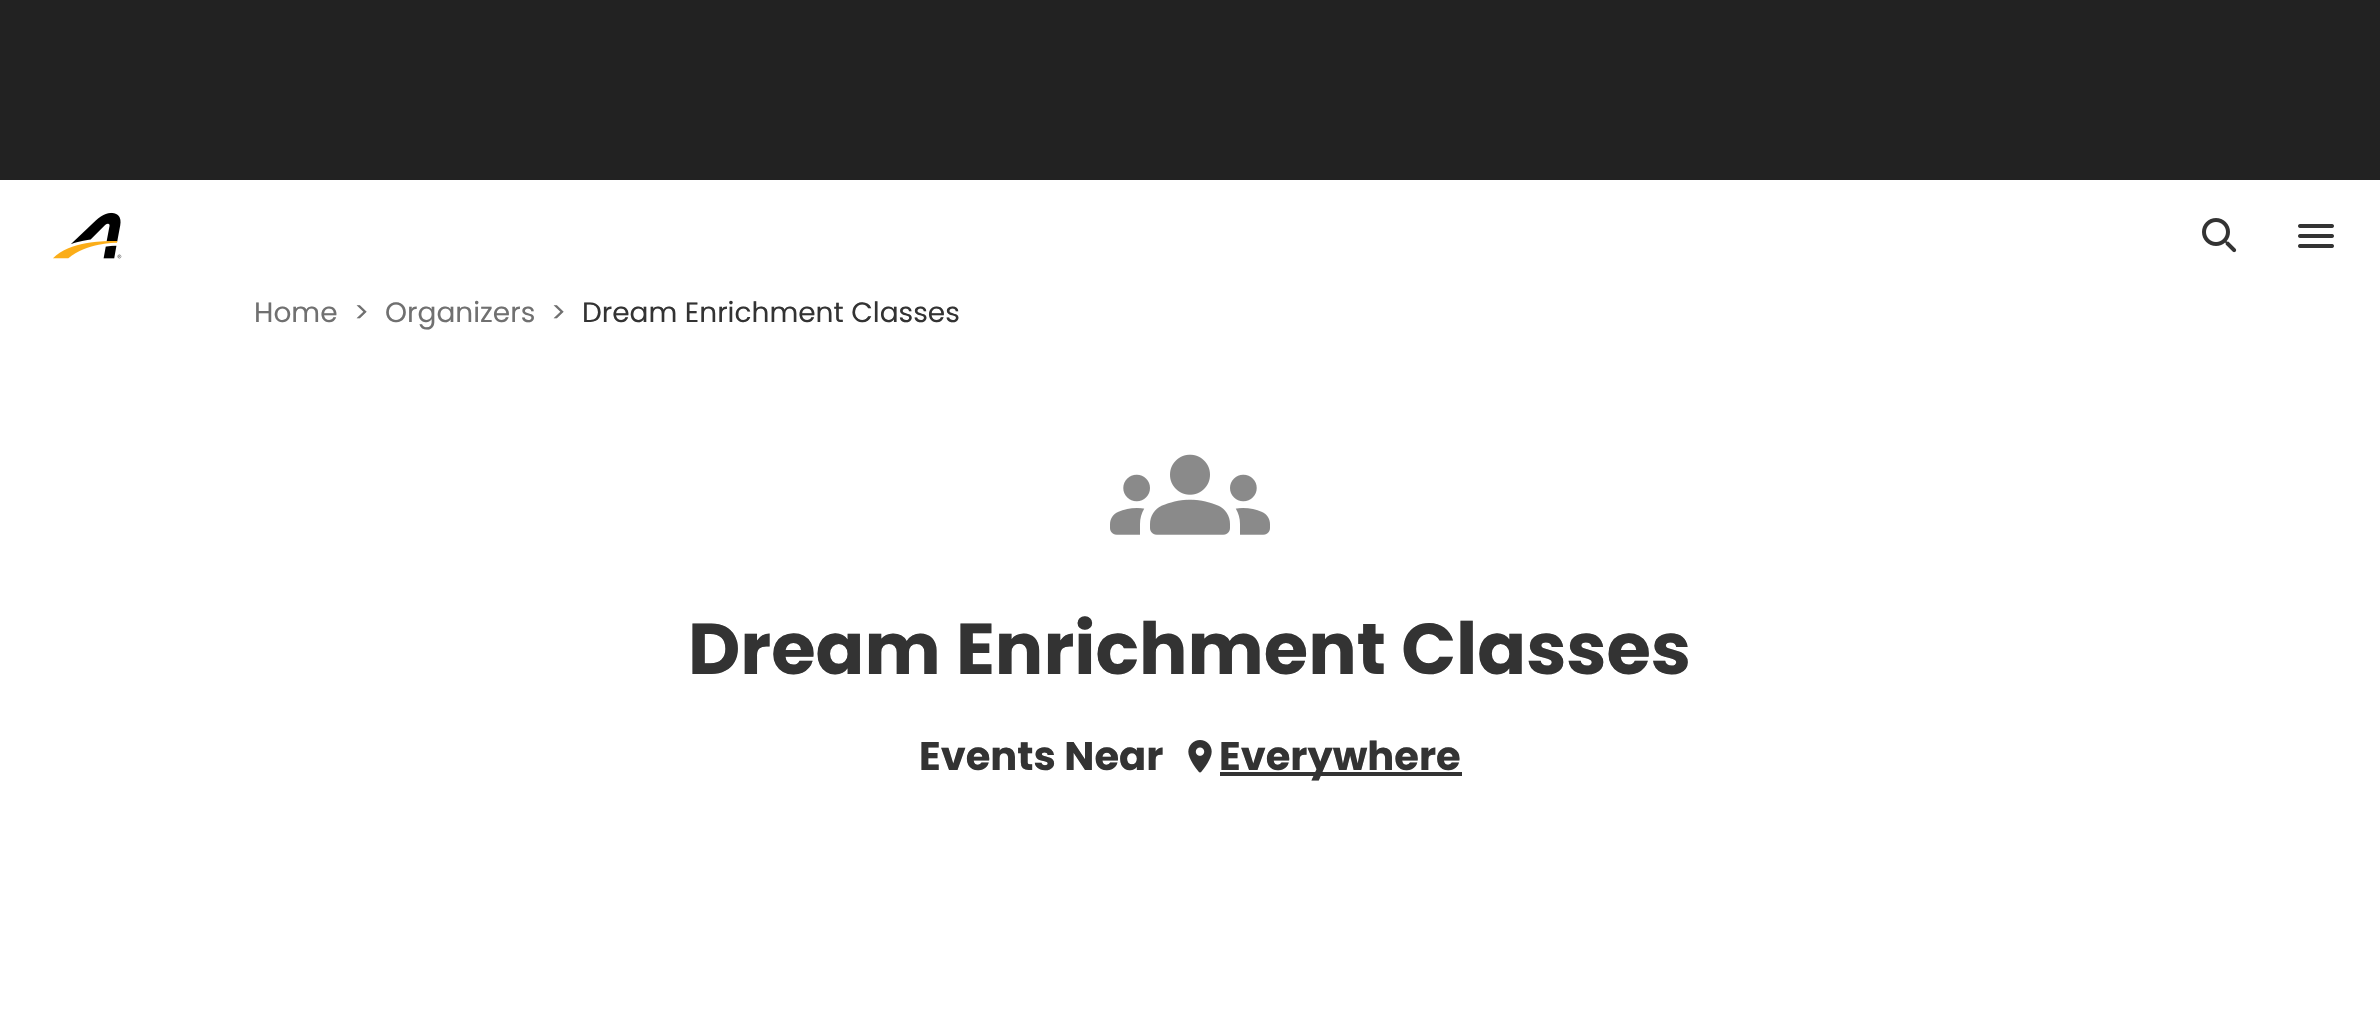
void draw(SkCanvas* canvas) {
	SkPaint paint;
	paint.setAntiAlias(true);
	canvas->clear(0xffffffff);
	paint.setColor(0xff222222);
	canvas->drawRect(SkRect::MakeXYWH(0, 0, 2380, 180), paint);
	canvas->drawImageRect(SkImages::DeferredFromEncodedData(SkData::MakeFromFileName("img1.png")), SkRect::MakeXYWH(53, 212, 69, 47), SkSamplingOptions());
	canvas->drawImageRect(SkImages::DeferredFromEncodedData(SkData::MakeFromFileName("img2.png")), SkRect::MakeXYWH(2202, 218, 35, 35), SkSamplingOptions());
	canvas->drawImageRect(SkImages::DeferredFromEncodedData(SkData::MakeFromFileName("img3.png")), SkRect::MakeXYWH(2298, 224, 36, 24), SkSamplingOptions());
	SkFont f1(fontMgr->matchFamilyStyle("Poppins", SkFontStyle::Normal()), 28);
	f1.setSubpixel(true);
	paint.setColor(0xff707070);
	canvas->drawString("Home", 254, 322, f1, paint);
	canvas->drawString(">", 354, 322, f1, paint);
	canvas->drawString("Organizers", 385, 322, f1, paint);
	canvas->drawString(">", 551, 322, f1, paint);
	paint.setColor(0xff333333);
	canvas->drawString("Dream Enrichment Classes", 582, 322, f1, paint);
	canvas->drawImageRect(SkImages::DeferredFromEncodedData(SkData::MakeFromFileName("img4.png")), SkRect::MakeXYWH(1110, 454, 160, 81), SkSamplingOptions());
	SkFont f2(fontMgr->matchFamilyStyle("Poppins", SkFontStyle::Bold()), 72);
	f2.setSubpixel(true);
	canvas->drawString("Dream Enrichment Classes", 688, 674, f2, paint);
	SkFont f3(fontMgr->matchFamilyStyle("Poppins", SkFontStyle::Bold()), 40);
	f3.setSubpixel(true);
	canvas->drawString("Events Near", 919, 770, f3, paint);
	canvas->drawImageRect(SkImages::DeferredFromEncodedData(SkData::MakeFromFileName("img5.png")), SkRect::MakeXYWH(1188, 740, 24, 33), SkSamplingOptions());
	canvas->drawRect(SkRect::MakeXYWH(1220, 772, 242, 4), paint);
	canvas->drawString("Everywhere", 1219, 770, f3, paint);
}
